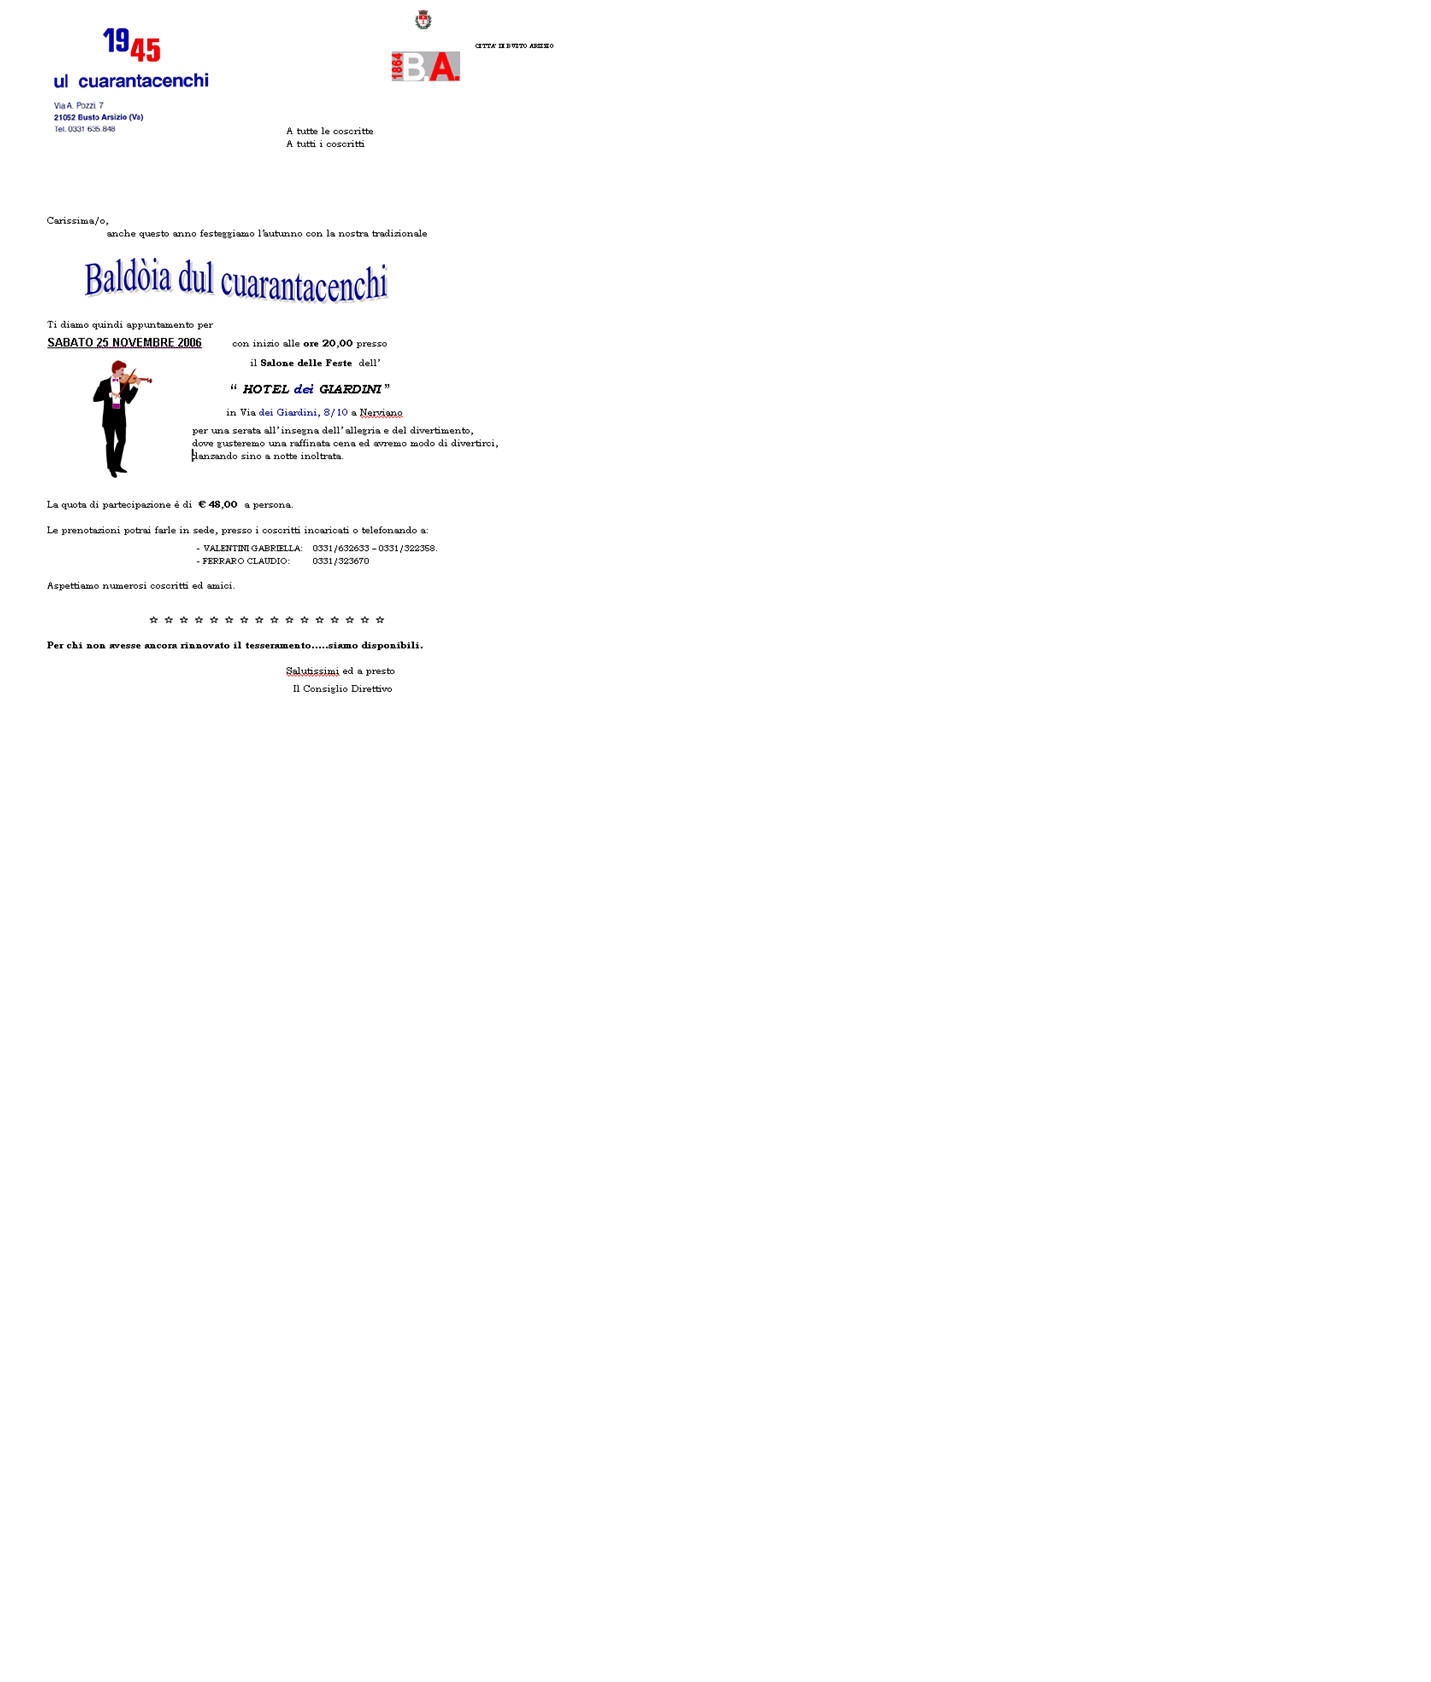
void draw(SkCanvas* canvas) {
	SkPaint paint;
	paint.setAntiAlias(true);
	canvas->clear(0xffffffff);
	canvas->drawImageRect(SkImages::DeferredFromEncodedData(SkData::MakeFromFileName("img1.png")), SkRect::MakeXYWH(40, 8, 518, 688), SkSamplingOptions());
}
